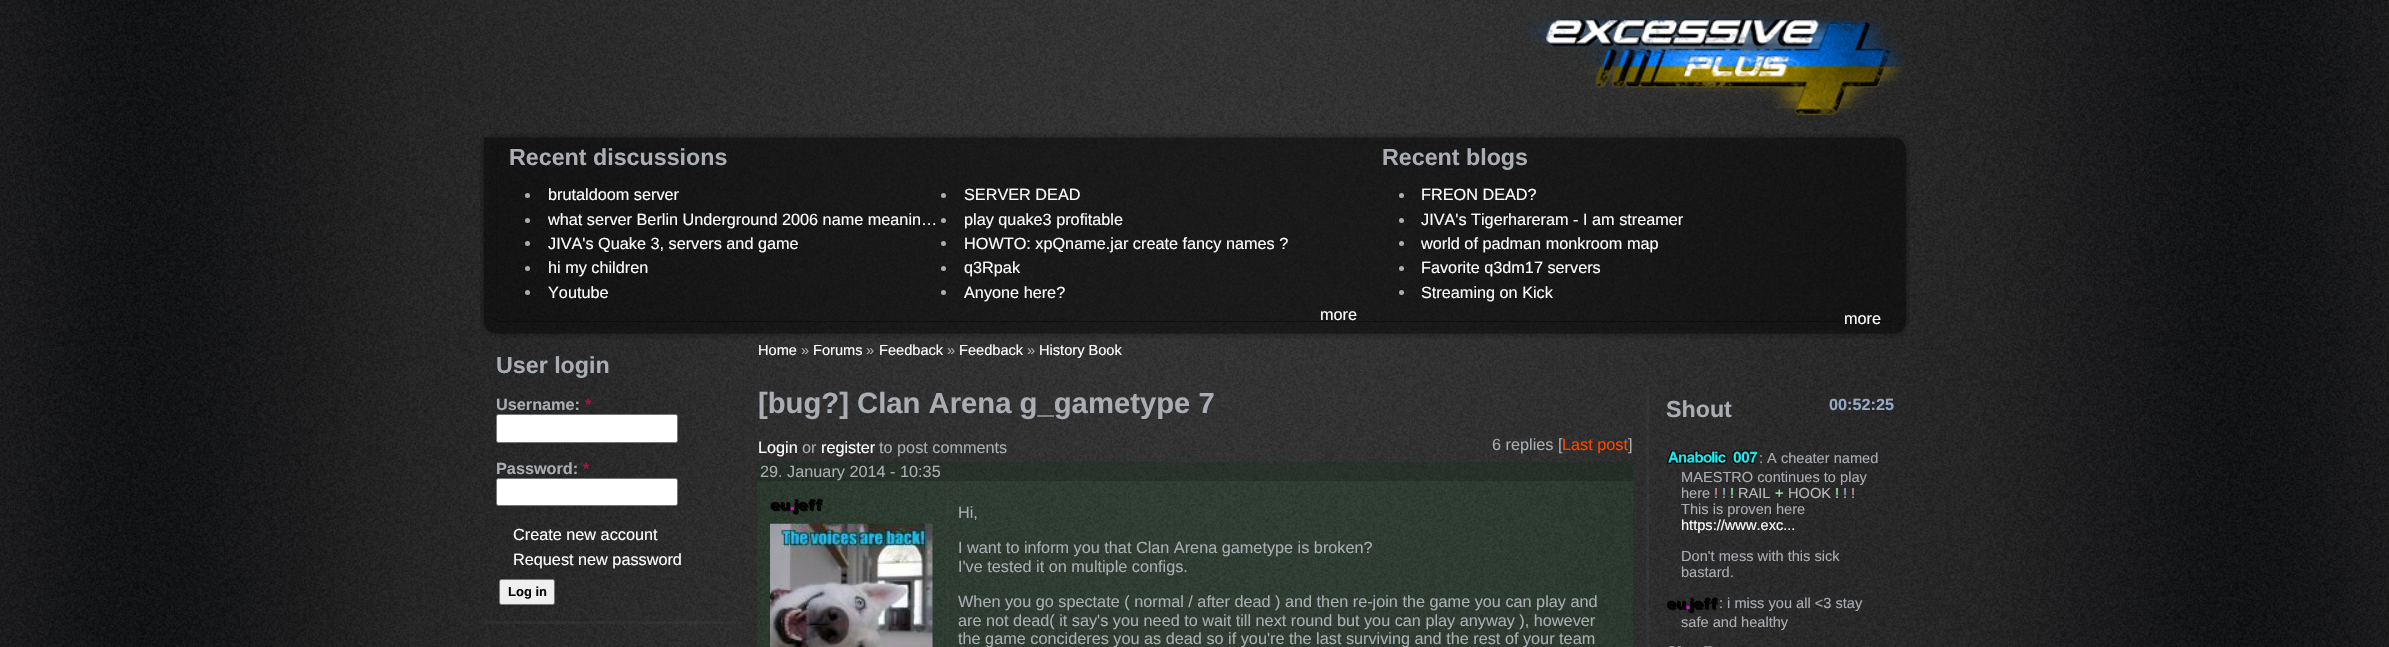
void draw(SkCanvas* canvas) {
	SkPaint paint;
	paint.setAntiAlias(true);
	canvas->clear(0xffffffff);
	canvas->drawImageRect(SkImages::DeferredFromEncodedData(SkData::MakeFromFileName("img1.png")), SkRect::MakeXYWH(0, 0, 2389, 647), SkSamplingOptions());
	canvas->drawImageRect(SkImages::DeferredFromEncodedData(SkData::MakeFromFileName("img2.png")), SkRect::MakeXYWH(1526, 14, 380, 102), SkSamplingOptions());
	canvas->drawImageRect(SkImages::DeferredFromEncodedData(SkData::MakeFromFileName("img3.png")), SkRect::MakeXYWH(480, 134, 17, 16), SkSamplingOptions());
	canvas->drawImageRect(SkImages::DeferredFromEncodedData(SkData::MakeFromFileName("img4.png")), SkRect::MakeXYWH(496, 133, 1398, 17), SkSamplingOptions());
	canvas->drawImageRect(SkImages::DeferredFromEncodedData(SkData::MakeFromFileName("img5.png")), SkRect::MakeXYWH(1894, 134, 14, 16), SkSamplingOptions());
	canvas->drawImageRect(SkImages::DeferredFromEncodedData(SkData::MakeFromFileName("img6.png")), SkRect::MakeXYWH(480, 150, 17, 172), SkSamplingOptions());
	paint.setColor(0x80000000);
	canvas->drawRect(SkRect::MakeXYWH(496, 150, 1398, 172), paint);
	SkFont f1(fontMgr->matchFamilyStyle("Liberation Sans", SkFontStyle::Bold()), 23.25);
	f1.setSubpixel(true);
	paint.setColor(0xffaaaeb3);
	canvas->drawString("Recent discussions", 509, 165, f1, paint);
	canvas->drawCircle(527.5, 195.5, 2.5, paint);
	SkFont f2(fontMgr->matchFamilyStyle("Liberation Sans", SkFontStyle::Normal()), 16.25);
	f2.setSubpixel(true);
	paint.setColor(0xffffffff);
	canvas->drawString("brutaldoom server", 548, 200, f2, paint);
	paint.setColor(0xffaaaeb3);
	canvas->drawCircle(943.5, 195.5, 2.5, paint);
	paint.setColor(0xffffffff);
	canvas->drawString("SERVER DEAD", 964, 200, f2, paint);
	paint.setColor(0xffaaaeb3);
	canvas->drawCircle(527.5, 220.5, 2.5, paint);
	paint.setColor(0xffffffff);
	canvas->drawString("what server Berlin Underground 2006 name meanin…", 548, 225, f2, paint);
	paint.setColor(0xffaaaeb3);
	canvas->drawCircle(943.5, 220.5, 2.5, paint);
	paint.setColor(0xffffffff);
	canvas->drawString("play quake3 profitable", 964, 225, f2, paint);
	paint.setColor(0xffaaaeb3);
	canvas->drawCircle(527.5, 243.5, 2.5, paint);
	paint.setColor(0xffffffff);
	canvas->drawString("JIVA's Quake 3, servers and game", 548, 249, f2, paint);
	paint.setColor(0xffaaaeb3);
	canvas->drawCircle(943.5, 243.5, 2.5, paint);
	paint.setColor(0xffffffff);
	canvas->drawString("HOWTO: xpQname.jar create fancy names ?", 964, 249, f2, paint);
	paint.setColor(0xffaaaeb3);
	canvas->drawCircle(527.5, 268.5, 2.5, paint);
	paint.setColor(0xffffffff);
	canvas->drawString("hi my children", 548, 273, f2, paint);
	paint.setColor(0xffaaaeb3);
	canvas->drawCircle(943.5, 268.5, 2.5, paint);
	paint.setColor(0xffffffff);
	canvas->drawString("q3Rpak", 964, 273, f2, paint);
	paint.setColor(0xffaaaeb3);
	canvas->drawCircle(527.5, 292.5, 2.5, paint);
	paint.setColor(0xffffffff);
	canvas->drawString("Youtube", 548, 298, f2, paint);
	paint.setColor(0xffaaaeb3);
	canvas->drawCircle(943.5, 292.5, 2.5, paint);
	paint.setColor(0xffffffff);
	canvas->drawString("Anyone here?", 964, 298, f2, paint);
	canvas->drawString("more", 1320, 320, f2, paint);
	paint.setColor(0xffaaaeb3);
	canvas->drawString("Recent blogs", 1382, 165, f1, paint);
	canvas->drawCircle(1401.5, 195.5, 2.5, paint);
	paint.setColor(0xffffffff);
	canvas->drawString("FREON DEAD?", 1421, 200, f2, paint);
	paint.setColor(0xffaaaeb3);
	canvas->drawCircle(1401.5, 220.5, 2.5, paint);
	paint.setColor(0xffffffff);
	canvas->drawString("JIVA's Tigerhareram - I am streamer", 1421, 225, f2, paint);
	paint.setColor(0xffaaaeb3);
	canvas->drawCircle(1401.5, 243.5, 2.5, paint);
	paint.setColor(0xffffffff);
	canvas->drawString("world of padman monkroom map", 1421, 249, f2, paint);
	paint.setColor(0xffaaaeb3);
	canvas->drawCircle(1401.5, 268.5, 2.5, paint);
	paint.setColor(0xffffffff);
	canvas->drawString("Favorite q3dm17 servers", 1421, 273, f2, paint);
	paint.setColor(0xffaaaeb3);
	canvas->drawCircle(1401.5, 292.5, 2.5, paint);
	paint.setColor(0xffffffff);
	canvas->drawString("Streaming on Kick", 1421, 298, f2, paint);
	canvas->drawImageRect(SkImages::DeferredFromEncodedData(SkData::MakeFromFileName("img8.png")), SkRect::MakeXYWH(482, 321, 15, 15), SkSamplingOptions());
	canvas->drawImageRect(SkImages::DeferredFromEncodedData(SkData::MakeFromFileName("img9.png")), SkRect::MakeXYWH(496, 321, 1398, 18), SkSamplingOptions());
	canvas->drawString("more", 1844, 324, f2, paint);
	canvas->drawImageRect(SkImages::DeferredFromEncodedData(SkData::MakeFromFileName("img7.png")), SkRect::MakeXYWH(1894, 150, 16, 172), SkSamplingOptions());
	canvas->drawImageRect(SkImages::DeferredFromEncodedData(SkData::MakeFromFileName("img10.png")), SkRect::MakeXYWH(1894, 321, 15, 16), SkSamplingOptions());
	paint.setColor(0x2b232323);
	canvas->drawRect(SkRect::MakeXYWH(742, 342, 3, 305), paint);
	paint.setColor(0x26575757);
	canvas->drawRect(SkRect::MakeXYWH(484, 621, 252, 3), paint);
	paint.setColor(0xffaaaeb3);
	canvas->drawString("User login", 496, 373, f1, paint);
	SkFont f3(fontMgr->matchFamilyStyle("Liberation Sans", SkFontStyle::Bold()), 16.25);
	f3.setSubpixel(true);
	canvas->drawString("Username:", 496, 410, f3, paint);
	paint.setColor(0xffaa1144);
	canvas->drawString("*", 585, 410, f3, paint);
	paint.setColor(0xffffffff);
	canvas->drawRoundRect(SkRect::MakeXYWH(496.5, 414.5, 181, 28), 2, 2, paint);
	paint.setStroke(true);
	paint.setStrokeWidth(1);
	paint.setColor(0xff767676);
	canvas->drawRoundRect(SkRect::MakeXYWH(496.5, 414.5, 181, 28), 2, 2, paint);
	paint.setStroke(false);
	paint.setColor(0xffaaaeb3);
	canvas->drawString("Password:", 496, 474, f3, paint);
	paint.setColor(0xffaa1144);
	canvas->drawString("*", 583, 474, f3, paint);
	paint.setColor(0xffffffff);
	canvas->drawRoundRect(SkRect::MakeXYWH(496.5, 478.5, 181, 27), 2, 2, paint);
	paint.setStroke(true);
	paint.setColor(0xff767676);
	canvas->drawRoundRect(SkRect::MakeXYWH(496.5, 478.5, 181, 27), 2, 2, paint);
	paint.setStroke(false);
	paint.setColor(0xffffffff);
	canvas->drawString("Create new account", 513, 540, f2, paint);
	canvas->drawString("Request new password", 513, 565, f2, paint);
	paint.setColor(0xffefefef);
	canvas->drawRoundRect(SkRect::MakeXYWH(499.5, 579.5, 55, 25), 2, 2, paint);
	paint.setStroke(true);
	paint.setColor(0xff767676);
	canvas->drawRoundRect(SkRect::MakeXYWH(499.5, 579.5, 55, 25), 2, 2, paint);
	SkFont f4(fontMgr->matchFamilyStyle("Liberation Sans", SkFontStyle::Bold()), 13);
	f4.setSubpixel(true);
	paint.setStroke(false);
	paint.setColor(0xff000000);
	canvas->drawString("Log in", 508, 596, f4, paint);
	SkFont f5(fontMgr->matchFamilyStyle("Liberation Sans", SkFontStyle::Normal()), 14.6);
	f5.setSubpixel(true);
	paint.setColor(0xffffffff);
	canvas->drawString("Home", 758, 355, f5, paint);
	paint.setColor(0xffaaaeb3);
	canvas->drawString("»", 801, 355, f5, paint);
	paint.setColor(0xffffffff);
	canvas->drawString("Forums", 813, 355, f5, paint);
	paint.setColor(0xffaaaeb3);
	canvas->drawString("»", 866, 355, f5, paint);
	paint.setColor(0xffffffff);
	canvas->drawString("Feedback", 879, 355, f5, paint);
	paint.setColor(0xffaaaeb3);
	canvas->drawString("»", 947, 355, f5, paint);
	paint.setColor(0xffffffff);
	canvas->drawString("Feedback", 959, 355, f5, paint);
	paint.setColor(0xffaaaeb3);
	canvas->drawString("»", 1027, 355, f5, paint);
	paint.setColor(0xffffffff);
	canvas->drawString("History Book", 1039, 355, f5, paint);
	SkFont f6(fontMgr->matchFamilyStyle("Liberation Sans", SkFontStyle::Bold()), 29.25);
	f6.setSubpixel(true);
	paint.setColor(0xffaaaeb3);
	canvas->drawString("[bug?] Clan Arena g_gametype 7", 758, 413, f6, paint);
	paint.setColor(0xffffffff);
	canvas->drawString("Login", 758, 453, f2, paint);
	paint.setColor(0xffaaaeb3);
	canvas->drawString("or", 802, 453, f2, paint);
	paint.setColor(0xffffffff);
	canvas->drawString("register", 821, 453, f2, paint);
	paint.setColor(0xffaaaeb3);
	canvas->drawString("to post comments", 879, 453, f2, paint);
	canvas->drawString("6 replies [", 1492, 450, f2, paint);
	paint.setColor(0xffff4500);
	canvas->drawString("Last post", 1562, 450, f2, paint);
	paint.setColor(0xffaaaeb3);
	canvas->drawString("]", 1628, 450, f2, paint);
	paint.setColor(0x0d00ff27);
	canvas->drawRect(SkRect::MakeXYWH(757, 462, 876, 185), paint);
	paint.setColor(0x3305050a);
	canvas->drawRect(SkRect::MakeXYWH(757, 462, 876, 19), paint);
	paint.setColor(0xffaaaeb3);
	canvas->drawString("29. January 2014 - 10:35", 760, 477, f2, paint);
	canvas->drawImageRect(SkImages::DeferredFromEncodedData(SkData::MakeFromFileName("img11.png")), SkRect::MakeXYWH(770, 498, 53, 17), SkSamplingOptions());
	canvas->drawImageRect(SkImages::DeferredFromEncodedData(SkData::MakeFromFileName("img12.png")), SkRect::MakeXYWH(770, 523, 163, 124), SkSamplingOptions());
	paint.setColor(0x29464646);
	canvas->drawRect(SkRect::MakeXYWH(946, 485, 3, 162), paint);
	paint.setColor(0xffaaaeb3);
	canvas->drawString("Hi,", 958, 518, f2, paint);
	canvas->drawString("I want to inform you that Clan Arena gametype is broken?", 958, 553, f2, paint);
	canvas->drawString("I've tested it on multiple configs.", 958, 572, f2, paint);
	canvas->drawString("When you go spectate ( normal / after dead ) and then re-join the game you can play and", 958, 607, f2, paint);
	canvas->drawString("are not dead( it say's you need to wait till next round but you can play anyway ), however", 958, 626, f2, paint);
	canvas->drawString("the game concideres you as dead so if you're the last surviving and the rest of your team", 958, 644, f2, paint);
	paint.setColor(0x26575757);
	canvas->drawRect(SkRect::MakeXYWH(1646, 386, 3, 261), paint);
	paint.setColor(0xffaaaeb3);
	canvas->drawString("Shout", 1666, 417, f1, paint);
	paint.setColor(0xff94aac5);
	canvas->drawString("00:52:25", 1829, 410, f3, paint);
	canvas->drawImageRect(SkImages::DeferredFromEncodedData(SkData::MakeFromFileName("img13.png")), SkRect::MakeXYWH(1667, 450, 92, 14), SkSamplingOptions());
	paint.setColor(0xffaaaeb3);
	canvas->drawString(": A cheater named", 1759, 463, f5, paint);
	canvas->drawString("MAESTRO continues to play", 1681, 482, f5, paint);
	canvas->drawString("here", 1681, 498, f5, paint);
	paint.setColor(0xffe69595);
	canvas->drawString("!", 1714, 498, f5, paint);
	paint.setColor(0xffa5b7db);
	canvas->drawString("!", 1722, 498, f5, paint);
	paint.setColor(0xff95eea6);
	canvas->drawString("!", 1730, 498, f5, paint);
	paint.setColor(0xffbababa);
	canvas->drawString("RAIL", 1738, 498, f5, paint);
	paint.setColor(0xff95eea6);
	canvas->drawString("+", 1775, 498, f5, paint);
	paint.setColor(0xffbababa);
	canvas->drawString("HOOK", 1788, 498, f5, paint);
	paint.setColor(0xff95eea6);
	canvas->drawString("!", 1835, 498, f5, paint);
	paint.setColor(0xffa5b7db);
	canvas->drawString("!", 1843, 498, f5, paint);
	paint.setColor(0xffe69595);
	canvas->drawString("!", 1851, 498, f5, paint);
	paint.setColor(0xffaaaeb3);
	canvas->drawString("This is proven here", 1681, 514, f5, paint);
	paint.setColor(0xffffffff);
	canvas->drawString("https://www.exc...", 1681, 530, f5, paint);
	paint.setColor(0xffaaaeb3);
	canvas->drawString("Don't mess with this sick", 1681, 561, f5, paint);
	canvas->drawString("bastard.", 1681, 577, f5, paint);
	canvas->drawImageRect(SkImages::DeferredFromEncodedData(SkData::MakeFromFileName("img14.png")), SkRect::MakeXYWH(1666, 597, 52, 17), SkSamplingOptions());
	canvas->drawString(": i miss you all <3 stay", 1719, 608, f5, paint);
	canvas->drawString("safe and healthy", 1681, 627, f5, paint);
	canvas->drawImageRect(SkImages::DeferredFromEncodedData(SkData::MakeFromFileName("img15.png")), SkRect::MakeXYWH(1669, 646, 44, 1), SkSamplingOptions());
}
